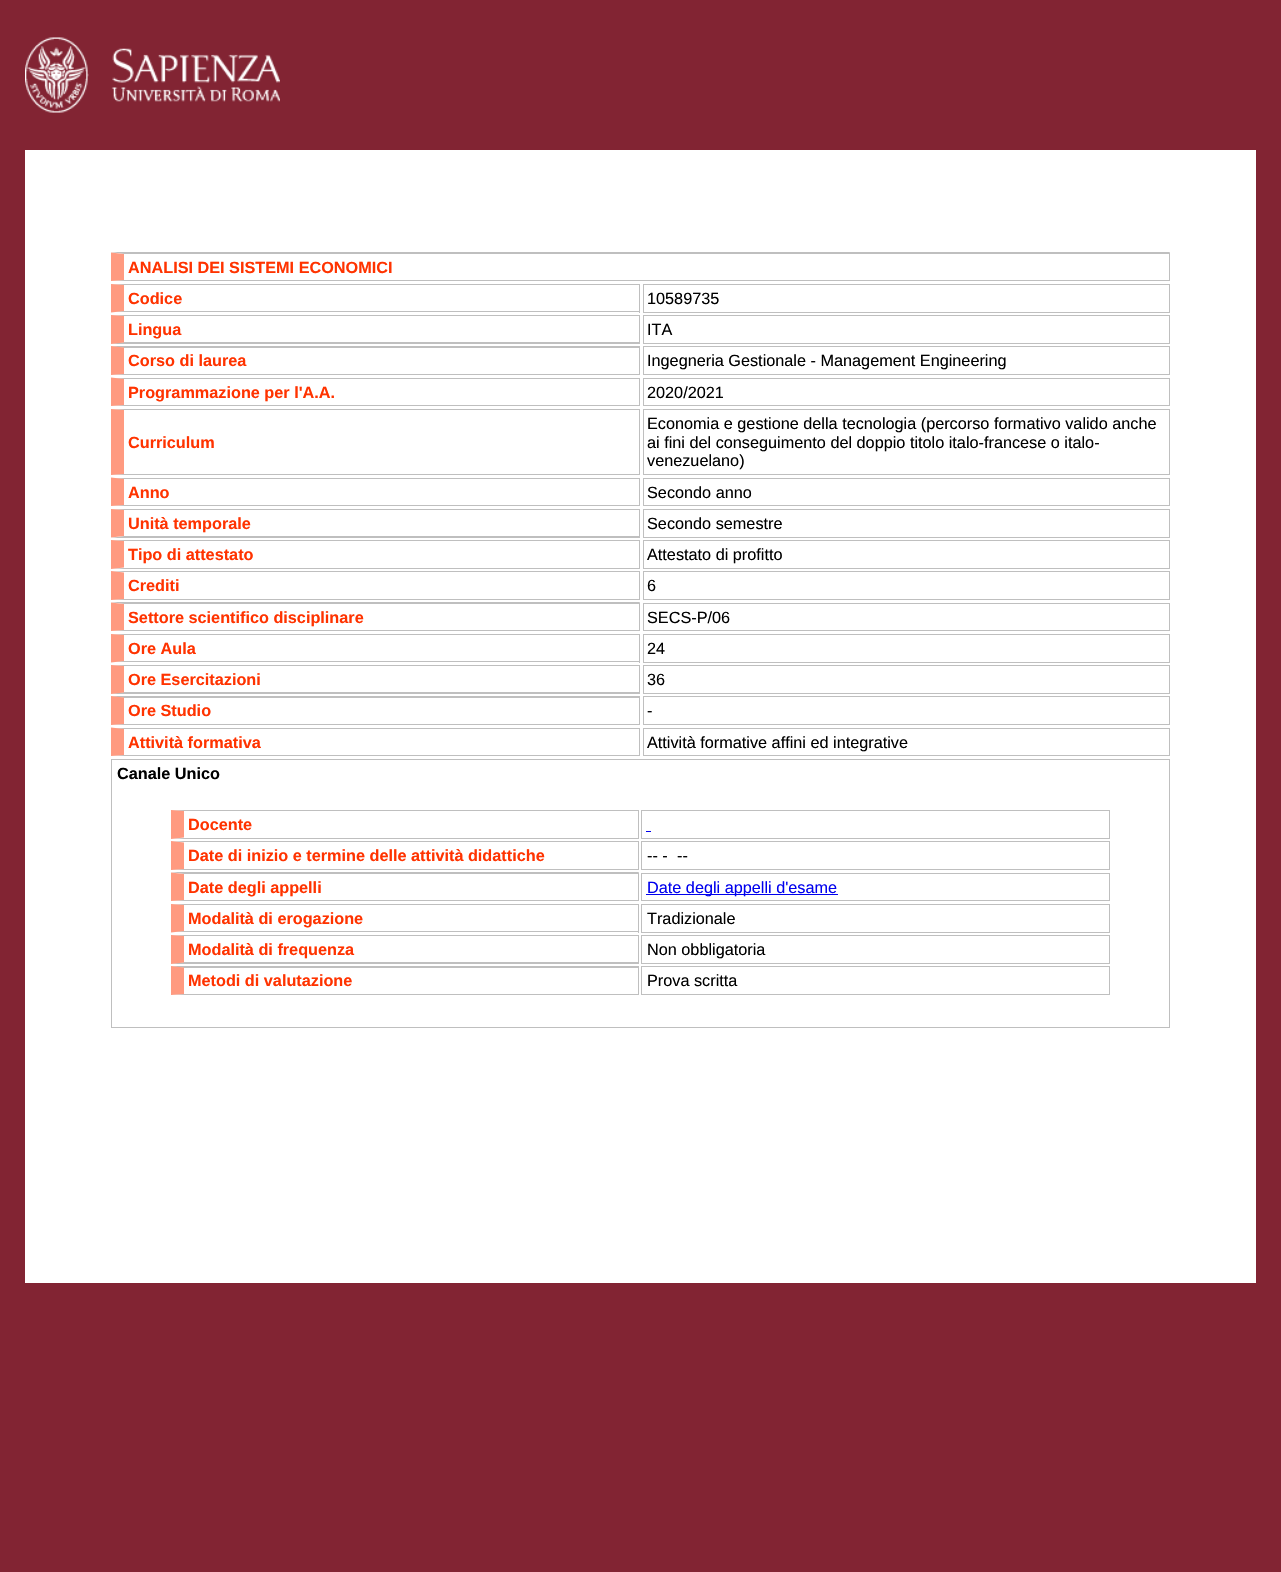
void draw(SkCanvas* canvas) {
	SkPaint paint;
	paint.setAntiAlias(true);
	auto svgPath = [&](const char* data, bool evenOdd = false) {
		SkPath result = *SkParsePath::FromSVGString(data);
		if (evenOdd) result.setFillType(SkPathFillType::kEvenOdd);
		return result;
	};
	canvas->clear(0xff822433);
	canvas->drawImageRect(SkImages::DeferredFromEncodedData(SkData::MakeFromFileName("img1.png")), SkRect::MakeXYWH(25, 37, 255, 76), SkSamplingOptions());
	paint.setColor(0xffffffff);
	canvas->drawRect(SkRect::MakeXYWH(25, 150, 1231, 1133), paint);
	paint.setColor(0xffbfbfbf);
	canvas->drawPath(svgPath("M111 252H1170L1169 254H124Z"), paint);
	canvas->drawRect(SkRect::MakeXYWH(1169, 253, 1, 28), paint);
	canvas->drawPath(svgPath("M1170 281H111L124 280H1169Z"), paint);
	paint.setColor(0xffff9a80);
	canvas->drawPath(svgPath("M111 281V252.5L124 254V280Z"), paint);
	SkFont f1(fontMgr->matchFamilyStyle("Liberation Sans", SkFontStyle::Bold()), 16.25);
	f1.setSubpixel(true);
	paint.setColor(0xffff3300);
	canvas->drawString("ANALISI DEI SISTEMI ECONOMICI", 128, 273, f1, paint);
	paint.setColor(0xffbfbfbf);
	canvas->drawPath(svgPath("M111 284H640L639 285H124Z"), paint);
	canvas->drawRect(SkRect::MakeXYWH(639, 284, 1, 29), paint);
	canvas->drawPath(svgPath("M640 312H111L124 311H639Z"), paint);
	paint.setColor(0xffff9a80);
	canvas->drawPath(svgPath("M111 312.5V284L124 285V311Z"), paint);
	paint.setColor(0xffff3300);
	canvas->drawString("Codice", 128, 304, f1, paint);
	paint.setStroke(true);
	paint.setStrokeWidth(1);
	paint.setColor(0xffbfbfbf);
	canvas->drawRect(SkRect::MakeXYWH(643.5, 284.5, 526, 28), paint);
	SkFont f2(fontMgr->matchFamilyStyle("Liberation Sans", SkFontStyle::Normal()), 16.25);
	f2.setSubpixel(true);
	paint.setStroke(false);
	paint.setColor(0xff000000);
	canvas->drawString("10589735", 647, 304, f2, paint);
	paint.setColor(0xffbfbfbf);
	canvas->drawPath(svgPath("M111 315H640L639 316H124Z"), paint);
	canvas->drawRect(SkRect::MakeXYWH(639, 315, 1, 29), paint);
	canvas->drawPath(svgPath("M640 344H111L124 342H639Z"), paint);
	paint.setColor(0xffff9a80);
	canvas->drawPath(svgPath("M111 344V315L124 316V342.5Z"), paint);
	paint.setColor(0xffff3300);
	canvas->drawString("Lingua", 128, 335, f1, paint);
	paint.setStroke(true);
	paint.setColor(0xffbfbfbf);
	canvas->drawRect(SkRect::MakeXYWH(643.5, 315.5, 526, 28), paint);
	paint.setStroke(false);
	paint.setColor(0xff000000);
	canvas->drawString("ITA", 647, 335, f2, paint);
	paint.setColor(0xffbfbfbf);
	canvas->drawPath(svgPath("M111 346H640L639 348H124Z"), paint);
	canvas->drawRect(SkRect::MakeXYWH(639, 346, 1, 29), paint);
	canvas->drawPath(svgPath("M640 375H111L124 374H639Z"), paint);
	paint.setColor(0xffff9a80);
	canvas->drawPath(svgPath("M111 375V346L124 347.5V374Z"), paint);
	paint.setColor(0xffff3300);
	canvas->drawString("Corso di laurea", 128, 366, f1, paint);
	paint.setStroke(true);
	paint.setColor(0xffbfbfbf);
	canvas->drawRect(SkRect::MakeXYWH(643.5, 346.5, 526, 28), paint);
	paint.setStroke(false);
	paint.setColor(0xff000000);
	canvas->drawString("Ingegneria Gestionale - Management Engineering", 647, 366, f2, paint);
	paint.setColor(0xffbfbfbf);
	canvas->drawPath(svgPath("M111 378H640L639 379H124Z"), paint);
	canvas->drawRect(SkRect::MakeXYWH(639, 378, 1, 28), paint);
	canvas->drawPath(svgPath("M640 406H111L124 405H639Z"), paint);
	paint.setColor(0xffff9a80);
	canvas->drawPath(svgPath("M111 406V377.5L124 379V405Z"), paint);
	paint.setColor(0xffff3300);
	canvas->drawString("Programmazione per l'A.A.", 128, 398, f1, paint);
	paint.setStroke(true);
	paint.setColor(0xffbfbfbf);
	canvas->drawRect(SkRect::MakeXYWH(643.5, 378.5, 526, 27), paint);
	paint.setStroke(false);
	paint.setColor(0xff000000);
	canvas->drawString("2020/2021", 647, 398, f2, paint);
	paint.setColor(0xffbfbfbf);
	canvas->drawPath(svgPath("M111 409H640L639 410H124Z"), paint);
	canvas->drawRect(SkRect::MakeXYWH(639, 409, 1, 66), paint);
	canvas->drawPath(svgPath("M640 475H111L124 474H639Z"), paint);
	paint.setColor(0xffff9a80);
	canvas->drawPath(svgPath("M111 475V409L124 410V474Z"), paint);
	paint.setColor(0xffff3300);
	canvas->drawString("Curriculum", 128, 448, f1, paint);
	paint.setStroke(true);
	paint.setColor(0xffbfbfbf);
	canvas->drawRect(SkRect::MakeXYWH(643.5, 409.5, 526, 65), paint);
	paint.setStroke(false);
	paint.setColor(0xff000000);
	canvas->drawString("Economia e gestione della tecnologia (percorso formativo valido anche", 647, 429, f2, paint);
	canvas->drawString("ai fini del conseguimento del doppio titolo italo-francese o italo-", 647, 448, f2, paint);
	canvas->drawString("venezuelano)", 647, 466, f2, paint);
	paint.setColor(0xffbfbfbf);
	canvas->drawPath(svgPath("M111 478H640L639 479H124Z"), paint);
	canvas->drawRect(SkRect::MakeXYWH(639, 478, 1, 28), paint);
	canvas->drawPath(svgPath("M640 506H111L124 505H639Z"), paint);
	paint.setColor(0xffff9a80);
	canvas->drawPath(svgPath("M111 506V477.5L124 479V505Z"), paint);
	paint.setColor(0xffff3300);
	canvas->drawString("Anno", 128, 498, f1, paint);
	paint.setStroke(true);
	paint.setColor(0xffbfbfbf);
	canvas->drawRect(SkRect::MakeXYWH(643.5, 478.5, 526, 27), paint);
	paint.setStroke(false);
	paint.setColor(0xff000000);
	canvas->drawString("Secondo anno", 647, 498, f2, paint);
	paint.setColor(0xffbfbfbf);
	canvas->drawPath(svgPath("M111 509H640L639 510H124Z"), paint);
	canvas->drawRect(SkRect::MakeXYWH(639, 509, 1, 29), paint);
	canvas->drawPath(svgPath("M640 538H111L124 536H639Z"), paint);
	paint.setColor(0xffff9a80);
	canvas->drawPath(svgPath("M111 537.5V509L124 510V536Z"), paint);
	paint.setColor(0xffff3300);
	canvas->drawString("Unità temporale", 128, 529, f1, paint);
	paint.setStroke(true);
	paint.setColor(0xffbfbfbf);
	canvas->drawRect(SkRect::MakeXYWH(643.5, 509.5, 526, 28), paint);
	paint.setStroke(false);
	paint.setColor(0xff000000);
	canvas->drawString("Secondo semestre", 647, 529, f2, paint);
	paint.setColor(0xffbfbfbf);
	canvas->drawPath(svgPath("M111 540H640L639 541H124Z"), paint);
	canvas->drawRect(SkRect::MakeXYWH(639, 540, 1, 29), paint);
	canvas->drawPath(svgPath("M640 569H111L124 568H639Z"), paint);
	paint.setColor(0xffff9a80);
	canvas->drawPath(svgPath("M111 569V540L124 541V567.5Z"), paint);
	paint.setColor(0xffff3300);
	canvas->drawString("Tipo di attestato", 128, 560, f1, paint);
	paint.setStroke(true);
	paint.setColor(0xffbfbfbf);
	canvas->drawRect(SkRect::MakeXYWH(643.5, 540.5, 526, 28), paint);
	paint.setStroke(false);
	paint.setColor(0xff000000);
	canvas->drawString("Attestato di profitto", 647, 560, f2, paint);
	paint.setColor(0xffbfbfbf);
	canvas->drawPath(svgPath("M111 571H640L639 572H124Z"), paint);
	canvas->drawRect(SkRect::MakeXYWH(639, 571, 1, 29), paint);
	canvas->drawPath(svgPath("M640 600H111L124 599H639Z"), paint);
	paint.setColor(0xffff9a80);
	canvas->drawPath(svgPath("M111 600V571L124 572.5V599Z"), paint);
	paint.setColor(0xffff3300);
	canvas->drawString("Crediti", 128, 591, f1, paint);
	paint.setStroke(true);
	paint.setColor(0xffbfbfbf);
	canvas->drawRect(SkRect::MakeXYWH(643.5, 571.5, 526, 28), paint);
	paint.setStroke(false);
	paint.setColor(0xff000000);
	canvas->drawString("6", 647, 591, f2, paint);
	paint.setColor(0xffbfbfbf);
	canvas->drawPath(svgPath("M111 602H640L639 604H124Z"), paint);
	canvas->drawRect(SkRect::MakeXYWH(639, 603, 1, 28), paint);
	canvas->drawPath(svgPath("M640 631H111L124 630H639Z"), paint);
	paint.setColor(0xffff9a80);
	canvas->drawPath(svgPath("M111 631V602.5L124 604V630Z"), paint);
	paint.setColor(0xffff3300);
	canvas->drawString("Settore scientifico disciplinare", 128, 623, f1, paint);
	paint.setStroke(true);
	paint.setColor(0xffbfbfbf);
	canvas->drawRect(SkRect::MakeXYWH(643.5, 603.5, 526, 27), paint);
	paint.setStroke(false);
	paint.setColor(0xff000000);
	canvas->drawString("SECS-P/06", 647, 623, f2, paint);
	paint.setColor(0xffbfbfbf);
	canvas->drawPath(svgPath("M111 634H640L639 635H124Z"), paint);
	canvas->drawRect(SkRect::MakeXYWH(639, 634, 1, 29), paint);
	canvas->drawPath(svgPath("M640 662H111L124 661H639Z"), paint);
	paint.setColor(0xffff9a80);
	canvas->drawPath(svgPath("M111 662.5V634L124 635V661Z"), paint);
	paint.setColor(0xffff3300);
	canvas->drawString("Ore Aula", 128, 654, f1, paint);
	paint.setStroke(true);
	paint.setColor(0xffbfbfbf);
	canvas->drawRect(SkRect::MakeXYWH(643.5, 634.5, 526, 28), paint);
	paint.setStroke(false);
	paint.setColor(0xff000000);
	canvas->drawString("24", 647, 654, f2, paint);
	paint.setColor(0xffbfbfbf);
	canvas->drawPath(svgPath("M111 665H640L639 666H124Z"), paint);
	canvas->drawRect(SkRect::MakeXYWH(639, 665, 1, 29), paint);
	canvas->drawPath(svgPath("M640 694H111L124 692H639Z"), paint);
	paint.setColor(0xffff9a80);
	canvas->drawPath(svgPath("M111 694V665L124 666V692.5Z"), paint);
	paint.setColor(0xffff3300);
	canvas->drawString("Ore Esercitazioni", 128, 685, f1, paint);
	paint.setStroke(true);
	paint.setColor(0xffbfbfbf);
	canvas->drawRect(SkRect::MakeXYWH(643.5, 665.5, 526, 28), paint);
	paint.setStroke(false);
	paint.setColor(0xff000000);
	canvas->drawString("36", 647, 685, f2, paint);
	paint.setColor(0xffbfbfbf);
	canvas->drawPath(svgPath("M111 696H640L639 698H124Z"), paint);
	canvas->drawRect(SkRect::MakeXYWH(639, 696, 1, 29), paint);
	canvas->drawPath(svgPath("M640 725H111L124 724H639Z"), paint);
	paint.setColor(0xffff9a80);
	canvas->drawPath(svgPath("M111 725V696L124 697.5V724Z"), paint);
	paint.setColor(0xffff3300);
	canvas->drawString("Ore Studio", 128, 716, f1, paint);
	paint.setStroke(true);
	paint.setColor(0xffbfbfbf);
	canvas->drawRect(SkRect::MakeXYWH(643.5, 696.5, 526, 28), paint);
	paint.setStroke(false);
	paint.setColor(0xff000000);
	canvas->drawString("-", 647, 716, f2, paint);
	paint.setColor(0xffbfbfbf);
	canvas->drawPath(svgPath("M111 728H640L639 729H124Z"), paint);
	canvas->drawRect(SkRect::MakeXYWH(639, 728, 1, 28), paint);
	canvas->drawPath(svgPath("M640 756H111L124 755H639Z"), paint);
	paint.setColor(0xffff9a80);
	canvas->drawPath(svgPath("M111 756V727.5L124 729V755Z"), paint);
	paint.setColor(0xffff3300);
	canvas->drawString("Attività formativa", 128, 748, f1, paint);
	paint.setStroke(true);
	paint.setColor(0xffbfbfbf);
	canvas->drawRect(SkRect::MakeXYWH(643.5, 728.5, 526, 27), paint);
	paint.setStroke(false);
	paint.setColor(0xff000000);
	canvas->drawString("Attività formative affini ed integrative", 647, 748, f2, paint);
	paint.setStroke(true);
	paint.setColor(0xffbfbfbf);
	canvas->drawRect(SkRect::MakeXYWH(111.5, 759.5, 1058, 268), paint);
	paint.setStroke(false);
	paint.setColor(0xff000000);
	canvas->drawString("Canale Unico", 117, 779, f1, paint);
	paint.setColor(0xffbfbfbf);
	canvas->drawPath(svgPath("M171 810H639L638 811H184Z"), paint);
	canvas->drawRect(SkRect::MakeXYWH(638, 810, 1, 29), paint);
	canvas->drawPath(svgPath("M639 839H171L184 838H638Z"), paint);
	paint.setColor(0xffff9a80);
	canvas->drawPath(svgPath("M171 839V810L184 811V837.5Z"), paint);
	paint.setColor(0xffff3300);
	canvas->drawString("Docente", 188, 830, f1, paint);
	paint.setStroke(true);
	paint.setColor(0xffbfbfbf);
	canvas->drawRect(SkRect::MakeXYWH(641.5, 810.5, 468, 28), paint);
	paint.setStroke(false);
	paint.setColor(0xff0000ee);
	canvas->drawRect(SkRect::MakeXYWH(646, 831, 5, 1), paint);
	paint.setColor(0xffbfbfbf);
	canvas->drawPath(svgPath("M171 841H639L638 842H184Z"), paint);
	canvas->drawRect(SkRect::MakeXYWH(638, 841, 1, 29), paint);
	canvas->drawPath(svgPath("M639 870H171L184 869H638Z"), paint);
	paint.setColor(0xffff9a80);
	canvas->drawPath(svgPath("M171 870V841L184 842.5V869Z"), paint);
	paint.setColor(0xffff3300);
	canvas->drawString("Date di inizio e termine delle attività didattiche", 188, 861, f1, paint);
	paint.setStroke(true);
	paint.setColor(0xffbfbfbf);
	canvas->drawRect(SkRect::MakeXYWH(641.5, 841.5, 468, 28), paint);
	paint.setStroke(false);
	paint.setColor(0xff000000);
	canvas->drawString("-- -", 647, 861, f2, paint);
	canvas->drawString("--", 677, 861, f2, paint);
	paint.setColor(0xffbfbfbf);
	canvas->drawPath(svgPath("M171 872H639L638 874H184Z"), paint);
	canvas->drawRect(SkRect::MakeXYWH(638, 873, 1, 28), paint);
	canvas->drawPath(svgPath("M639 901H171L184 900H638Z"), paint);
	paint.setColor(0xffff9a80);
	canvas->drawPath(svgPath("M171 901V872.5L184 874V900Z"), paint);
	paint.setColor(0xffff3300);
	canvas->drawString("Date degli appelli", 188, 893, f1, paint);
	paint.setStroke(true);
	paint.setColor(0xffbfbfbf);
	canvas->drawRect(SkRect::MakeXYWH(641.5, 873.5, 468, 27), paint);
	paint.setStroke(false);
	paint.setColor(0xff0000ee);
	canvas->drawRect(SkRect::MakeXYWH(646, 894, 192, 1), paint);
	canvas->drawString("Date degli appelli d'esame", 647, 893, f2, paint);
	paint.setColor(0xffbfbfbf);
	canvas->drawPath(svgPath("M171 904H639L638 905H184Z"), paint);
	canvas->drawRect(SkRect::MakeXYWH(638, 904, 1, 29), paint);
	canvas->drawPath(svgPath("M639 932H171L184 931H638Z"), paint);
	paint.setColor(0xffff9a80);
	canvas->drawPath(svgPath("M171 932.5V904L184 905V931Z"), paint);
	paint.setColor(0xffff3300);
	canvas->drawString("Modalità di erogazione", 188, 924, f1, paint);
	paint.setStroke(true);
	paint.setColor(0xffbfbfbf);
	canvas->drawRect(SkRect::MakeXYWH(641.5, 904.5, 468, 28), paint);
	paint.setStroke(false);
	paint.setColor(0xff000000);
	canvas->drawString("Tradizionale", 647, 924, f2, paint);
	paint.setColor(0xffbfbfbf);
	canvas->drawPath(svgPath("M171 935H639L638 936H184Z"), paint);
	canvas->drawRect(SkRect::MakeXYWH(638, 935, 1, 29), paint);
	canvas->drawPath(svgPath("M639 964H171L184 962H638Z"), paint);
	paint.setColor(0xffff9a80);
	canvas->drawPath(svgPath("M171 964V935L184 936V962.5Z"), paint);
	paint.setColor(0xffff3300);
	canvas->drawString("Modalità di frequenza", 188, 955, f1, paint);
	paint.setStroke(true);
	paint.setColor(0xffbfbfbf);
	canvas->drawRect(SkRect::MakeXYWH(641.5, 935.5, 468, 28), paint);
	paint.setStroke(false);
	paint.setColor(0xff000000);
	canvas->drawString("Non obbligatoria", 647, 955, f2, paint);
	paint.setColor(0xffbfbfbf);
	canvas->drawPath(svgPath("M171 966H639L638 968H184Z"), paint);
	canvas->drawRect(SkRect::MakeXYWH(638, 966, 1, 29), paint);
	canvas->drawPath(svgPath("M639 995H171L184 994H638Z"), paint);
	paint.setColor(0xffff9a80);
	canvas->drawPath(svgPath("M171 995V966L184 967.5V994Z"), paint);
	paint.setColor(0xffff3300);
	canvas->drawString("Metodi di valutazione", 188, 986, f1, paint);
	paint.setStroke(true);
	paint.setColor(0xffbfbfbf);
	canvas->drawRect(SkRect::MakeXYWH(641.5, 966.5, 468, 28), paint);
	paint.setStroke(false);
	paint.setColor(0xff000000);
	canvas->drawString("Prova scritta", 647, 986, f2, paint);
}
